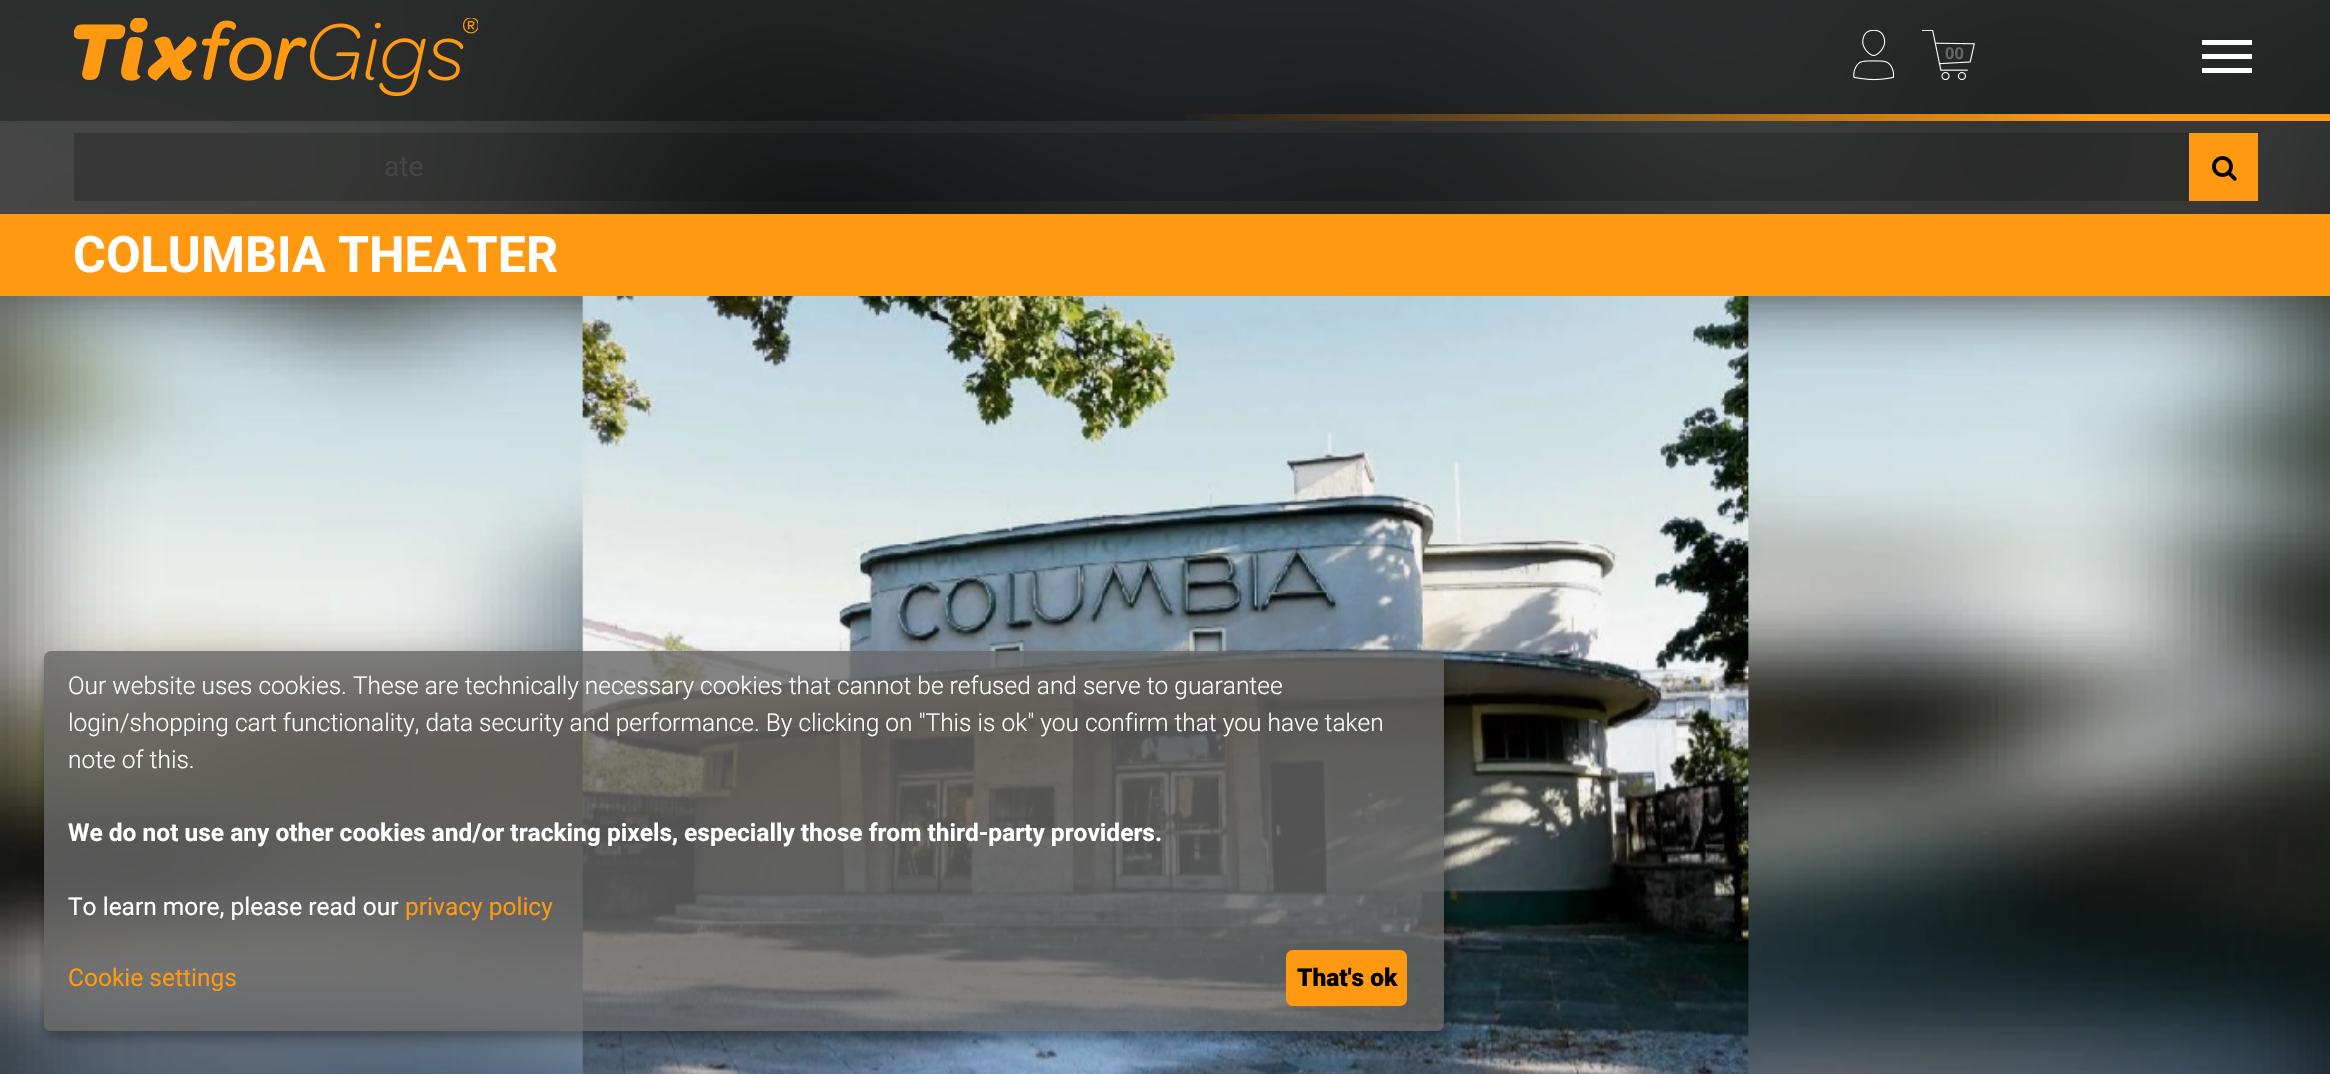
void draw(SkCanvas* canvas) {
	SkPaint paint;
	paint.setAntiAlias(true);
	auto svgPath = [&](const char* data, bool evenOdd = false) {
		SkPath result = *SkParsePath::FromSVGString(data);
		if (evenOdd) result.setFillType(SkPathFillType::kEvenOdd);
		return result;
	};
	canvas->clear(0xffffffff);
	canvas->drawImageRect(SkImages::DeferredFromEncodedData(SkData::MakeFromFileName("img1.png")), SkRect::MakeXYWH(0, 0, 2330, 1074), SkSamplingOptions());
	paint.setColor(0xcc000000);
	canvas->drawRect(SkRect::MakeXYWH(0, 0, 2330, 121), paint);
	canvas->drawImageRect(SkImages::DeferredFromEncodedData(SkData::MakeFromFileName("img2.png")), SkRect::MakeXYWH(74, 18, 404, 78), SkSamplingOptions());
	canvas->drawImageRect(SkImages::DeferredFromEncodedData(SkData::MakeFromFileName("img3.png")), SkRect::MakeXYWH(1853, 30, 42, 51), SkSamplingOptions());
	canvas->drawImageRect(SkImages::DeferredFromEncodedData(SkData::MakeFromFileName("img4.png")), SkRect::MakeXYWH(1922, 30, 53, 51), SkSamplingOptions());
	SkFont f1(fontMgr->matchFamilyStyle("Liberation Sans", SkFontStyle::Bold()), 17);
	f1.setSubpixel(true);
	paint.setColor(0xff666666);
	canvas->drawString("00", 1945, 59, f1, paint);
	paint.setColor(0xffffffff);
	canvas->drawRect(SkRect::MakeXYWH(2202, 54, 50, 5), paint);
	canvas->drawRect(SkRect::MakeXYWH(2202, 40, 50, 5), paint);
	canvas->drawRect(SkRect::MakeXYWH(2202, 68, 50, 5), paint);
	{
		const SkColor colors[] = {0x00ff9911, 0xffff9911, 0xffff9911, 0x00ff9911};
		const float stops[] = {0, 0.4, 0.6, 1};
		const SkPoint ends[] = {{1166, 117}, {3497, 117}};
		paint.setShader(SkGradientShader::MakeLinear(ends, colors, stops, 4, SkTileMode::kClamp));
		paint.setAlpha(255);
	}
	canvas->drawRect(SkRect::MakeXYWH(1186, 114, 1144, 7), paint);
	paint.setShader(nullptr);
	paint.setColor(0xb3000000);
	canvas->drawRect(SkRect::MakeXYWH(0, 121, 2330, 93), paint);
	paint.setColor(0x33000000);
	canvas->drawRect(SkRect::MakeXYWH(74, 133, 2115, 68), paint);
	SkFont f2(fontMgr->matchFamilyStyle("Roboto", SkFontStyle::Normal()), 28);
	f2.setSubpixel(true);
	paint.setColor(0xff444544);
	canvas->drawString("ate", 384, 176, f2, paint);
	paint.setColor(0xffff9911);
	canvas->drawRect(SkRect::MakeXYWH(2189, 133, 69, 68), paint);
	canvas->drawImageRect(SkImages::DeferredFromEncodedData(SkData::MakeFromFileName("img5.png")), SkRect::MakeXYWH(2212, 156, 25, 25), SkSamplingOptions());
	paint.setColor(0x80000000);
	canvas->drawRect(SkRect::MakeXYWH(0, 296, 2330, 778), paint);
	paint.setColor(0xffff9911);
	canvas->drawRect(SkRect::MakeXYWH(0, 214, 2330, 82), paint);
	SkFont f3(fontMgr->matchFamilyStyle("Roboto", SkFontStyle::Bold()), 50.25);
	f3.setSubpixel(true);
	paint.setColor(0xffffffff);
	canvas->drawString("COLUMBIA THEATER", 73, 272, f3, paint);
	paint.setColor(0x4d000000);
	canvas->drawRect(SkRect::MakeXYWH(0, 296, 2330, 778), paint);
	canvas->drawImageRect(SkImages::DeferredFromEncodedData(SkData::MakeFromFileName("img6.png")), SkRect::MakeXYWH(0, 296, 2330, 778), SkSamplingOptions());
	canvas->save();
	canvas->clipPath(svgPath("M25 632H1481V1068H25ZM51 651H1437C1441 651 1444 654 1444 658V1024C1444 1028 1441 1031 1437 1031H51C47 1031 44 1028 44 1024V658C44 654 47 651 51 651Z", true), true);
	paint.setColor(0x30000000);
	paint.setMaskFilter(SkMaskFilter::MakeBlur(kNormal_SkBlurStyle, 9));
	canvas->drawRoundRect(SkRect::MakeXYWH(53, 660, 1400, 380), 7, 7, paint);
	paint.setMaskFilter(nullptr);
	canvas->restore();
	canvas->save();
	canvas->clipPath(svgPath("M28 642H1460V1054H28ZM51 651H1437C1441 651 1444 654 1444 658V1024C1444 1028 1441 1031 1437 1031H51C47 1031 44 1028 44 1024V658C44 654 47 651 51 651Z", true), true);
	paint.setColor(0x33000000);
	paint.setMaskFilter(SkMaskFilter::MakeBlur(kNormal_SkBlurStyle, 5));
	canvas->drawRoundRect(SkRect::MakeXYWH(44, 658, 1400, 380), 7, 7, paint);
	paint.setMaskFilter(nullptr);
	canvas->restore();
	paint.setColor(0xcc666666);
	canvas->drawRoundRect(SkRect::MakeXYWH(44, 651, 1400, 380), 7, 7, paint);
	SkFont f4(fontMgr->matchFamilyStyle("Roboto", SkFontStyle(300, SkFontStyle::kNormal_Width, SkFontStyle::kUpright_Slant)), 24.5);
	f4.setSubpixel(true);
	paint.setColor(0xffffffff);
	canvas->drawString("Our website uses cookies. These are technically necessary cookies that cannot be refused and serve to guarantee", 68, 694, f4, paint);
	canvas->drawString("login/shopping cart functionality, data security and performance. By clicking on \"This is ok\" you confirm that you have taken", 68, 731, f4, paint);
	canvas->drawString("note of this.", 68, 768, f4, paint);
	SkFont f5(fontMgr->matchFamilyStyle("Roboto", SkFontStyle::Bold()), 24.5);
	f5.setSubpixel(true);
	canvas->drawString("We do not use any other cookies and/or tracking pixels, especially those from third-party providers.", 68, 841, f5, paint);
	SkFont f6(fontMgr->matchFamilyStyle("Roboto", SkFontStyle::Normal()), 24.5);
	f6.setSubpixel(true);
	canvas->drawString("To learn more, please read our", 68, 915, f6, paint);
	paint.setColor(0xffff9911);
	canvas->drawString("privacy policy", 405, 915, f6, paint);
	canvas->drawString("Cookie settings", 68, 986, f6, paint);
	canvas->drawRoundRect(SkRect::MakeXYWH(1286, 950, 121, 56), 7, 7, paint);
	SkFont f7(fontMgr->matchFamilyStyle("Roboto", SkFontStyle(900, SkFontStyle::kNormal_Width, SkFontStyle::kUpright_Slant)), 24.5);
	f7.setSubpixel(true);
	paint.setColor(0xff000000);
	canvas->drawString("That's ok", 1297, 986, f7, paint);
}
